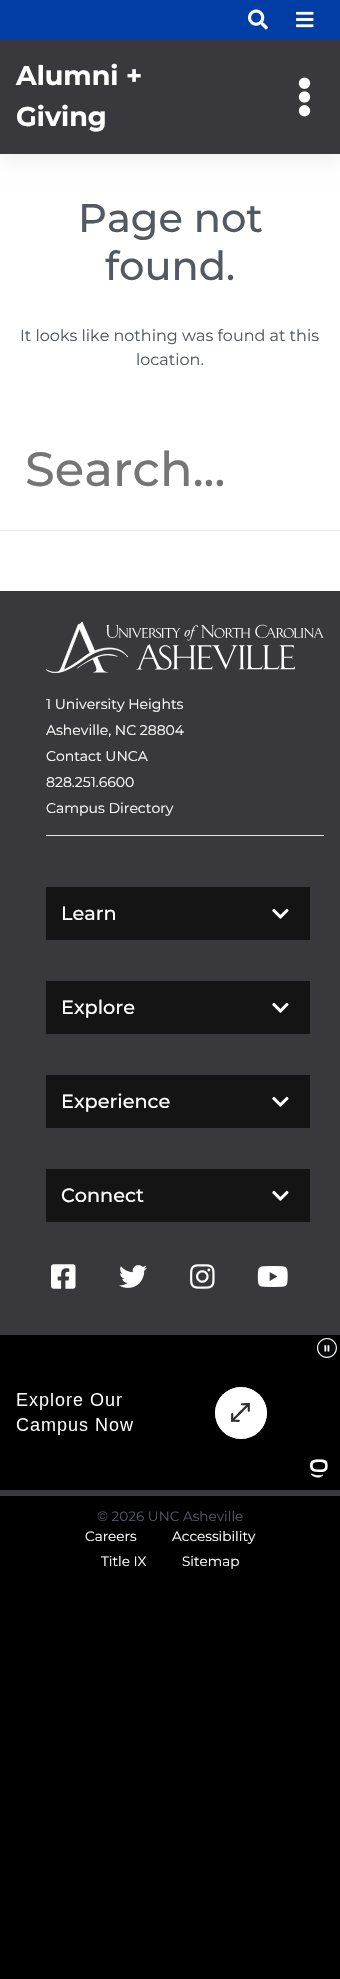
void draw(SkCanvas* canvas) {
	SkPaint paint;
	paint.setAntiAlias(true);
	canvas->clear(0xff000000);
	paint.setColor(0xffffffff);
	canvas->drawRect(SkRect::MakeXYWH(0, 154, 340, 437), paint);
	paint.setColor(0x0d000000);
	paint.setMaskFilter(SkMaskFilter::MakeBlur(kNormal_SkBlurStyle, 8));
	canvas->drawRect(SkRect::MakeXYWH(0, 8, 340, 154), paint);
	paint.setMaskFilter(nullptr);
	paint.setColor(0xff003da5);
	canvas->drawRect(SkRect::MakeXYWH(0, 0, 340, 40), paint);
	canvas->drawImageRect(SkImages::DeferredFromEncodedData(SkData::MakeFromFileName("img1.png")), SkRect::MakeXYWH(248, 9, 20, 21), SkSamplingOptions());
	canvas->drawImageRect(SkImages::DeferredFromEncodedData(SkData::MakeFromFileName("img2.png")), SkRect::MakeXYWH(296, 11, 18, 17), SkSamplingOptions());
	paint.setColor(0xff39393d);
	canvas->drawRect(SkRect::MakeXYWH(0, 40, 340, 114), paint);
	SkFont f1(fontMgr->matchFamilyStyle("Montserrat", SkFontStyle::Bold()), 27);
	f1.setSubpixel(true);
	paint.setColor(0xffffffff);
	canvas->drawString("Alumni +", 16, 85, f1, paint);
	canvas->drawString("Giving", 16, 126, f1, paint);
	canvas->drawImageRect(SkImages::DeferredFromEncodedData(SkData::MakeFromFileName("img3.png")), SkRect::MakeXYWH(298, 77, 13, 40), SkSamplingOptions());
	SkFont f2(fontMgr->matchFamilyStyle("Montserrat", SkFontStyle(500, SkFontStyle::kNormal_Width, SkFontStyle::kUpright_Slant)), 40);
	f2.setSubpixel(true);
	paint.setColor(0xff535961);
	canvas->drawString("Page not", 78, 232, f2, paint);
	canvas->drawString("found.", 105, 280, f2, paint);
	SkFont f3(fontMgr->matchFamilyStyle("Montserrat", SkFontStyle::Normal()), 16);
	f3.setSubpixel(true);
	canvas->drawString("It looks like nothing was found at this", 20, 341, f3, paint);
	canvas->drawString("location.", 136, 365, f3, paint);
	paint.setColor(0xffededee);
	canvas->drawRect(SkRect::MakeXYWH(0, 530, 340, 1), paint);
	SkFont f4(fontMgr->matchFamilyStyle("Montserrat", SkFontStyle(500, SkFontStyle::kNormal_Width, SkFontStyle::kUpright_Slant)), 48);
	f4.setSubpixel(true);
	paint.setColor(0xff757575);
	canvas->drawString("Search...", 25, 486, f4, paint);
	paint.setColor(0xff39393d);
	canvas->drawRect(SkRect::MakeXYWH(0, 591, 340, 905), paint);
	canvas->drawImageRect(SkImages::DeferredFromEncodedData(SkData::MakeFromFileName("img4.png")), SkRect::MakeXYWH(46, 621, 278, 52), SkSamplingOptions());
	SkFont f5(fontMgr->matchFamilyStyle("Montserrat", SkFontStyle::Normal()), 14);
	f5.setSubpixel(true);
	paint.setColor(0xffffffff);
	canvas->drawString("1 University Heights", 46, 709, f5, paint);
	canvas->drawString("Asheville, NC 28804", 46, 735, f5, paint);
	canvas->drawString("Contact UNCA", 46, 761, f5, paint);
	canvas->drawString("828.251.6600", 46, 787, f5, paint);
	canvas->drawString("Campus Directory", 46, 813, f5, paint);
	paint.setColor(0xffe6e6e6);
	canvas->drawRect(SkRect::MakeXYWH(46, 835, 278, 1), paint);
	paint.setColor(0xff141415);
	canvas->drawRect(SkRect::MakeXYWH(46, 887, 264, 53), paint);
	SkFont f6(fontMgr->matchFamilyStyle("Montserrat", SkFontStyle(500, SkFontStyle::kNormal_Width, SkFontStyle::kUpright_Slant)), 19.25);
	f6.setSubpixel(true);
	paint.setColor(0xffffffff);
	canvas->drawString("Learn", 61, 920, f6, paint);
	canvas->drawImageRect(SkImages::DeferredFromEncodedData(SkData::MakeFromFileName("img5.png")), SkRect::MakeXYWH(272, 908, 17, 11), SkSamplingOptions());
	paint.setColor(0xff141415);
	canvas->drawRect(SkRect::MakeXYWH(46, 981, 264, 53), paint);
	paint.setColor(0xffffffff);
	canvas->drawString("Explore", 61, 1014, f6, paint);
	canvas->drawImageRect(SkImages::DeferredFromEncodedData(SkData::MakeFromFileName("img5.png")), SkRect::MakeXYWH(272, 1002, 17, 11), SkSamplingOptions());
	paint.setColor(0xff141415);
	canvas->drawRect(SkRect::MakeXYWH(46, 1075, 264, 53), paint);
	paint.setColor(0xffffffff);
	canvas->drawString("Experience", 61, 1108, f6, paint);
	canvas->drawImageRect(SkImages::DeferredFromEncodedData(SkData::MakeFromFileName("img5.png")), SkRect::MakeXYWH(272, 1096, 17, 11), SkSamplingOptions());
	paint.setColor(0xff141415);
	canvas->drawRect(SkRect::MakeXYWH(46, 1169, 264, 53), paint);
	paint.setColor(0xffffffff);
	canvas->drawString("Connect", 61, 1202, f6, paint);
	canvas->drawImageRect(SkImages::DeferredFromEncodedData(SkData::MakeFromFileName("img5.png")), SkRect::MakeXYWH(272, 1190, 17, 11), SkSamplingOptions());
	canvas->drawImageRect(SkImages::DeferredFromEncodedData(SkData::MakeFromFileName("img6.png")), SkRect::MakeXYWH(51, 1264, 25, 25), SkSamplingOptions());
	canvas->drawImageRect(SkImages::DeferredFromEncodedData(SkData::MakeFromFileName("img7.png")), SkRect::MakeXYWH(119, 1265, 28, 23), SkSamplingOptions());
	canvas->drawImageRect(SkImages::DeferredFromEncodedData(SkData::MakeFromFileName("img8.png")), SkRect::MakeXYWH(190, 1264, 25, 25), SkSamplingOptions());
	canvas->drawImageRect(SkImages::DeferredFromEncodedData(SkData::MakeFromFileName("img9.png")), SkRect::MakeXYWH(257, 1266, 31, 21), SkSamplingOptions());
	canvas->drawImageRect(SkImages::DeferredFromEncodedData(SkData::MakeFromFileName("img10.png")), SkRect::MakeXYWH(0, 1335, 340, 155), SkSamplingOptions());
	SkFont f7(fontMgr->matchFamilyStyle("Montserrat", SkFontStyle::Normal()), 13.6);
	f7.setSubpixel(true);
	paint.setColor(0xff535961);
	canvas->drawString("© 2026 UNC Asheville", 97, 1521, f7, paint);
	paint.setColor(0xffffffff);
	canvas->drawString("Careers", 85, 1541, f7, paint);
	canvas->drawString("Accessibility", 172, 1541, f7, paint);
	canvas->drawString("Title IX", 101, 1566, f7, paint);
	canvas->drawString("Sitemap", 182, 1566, f7, paint);
}
